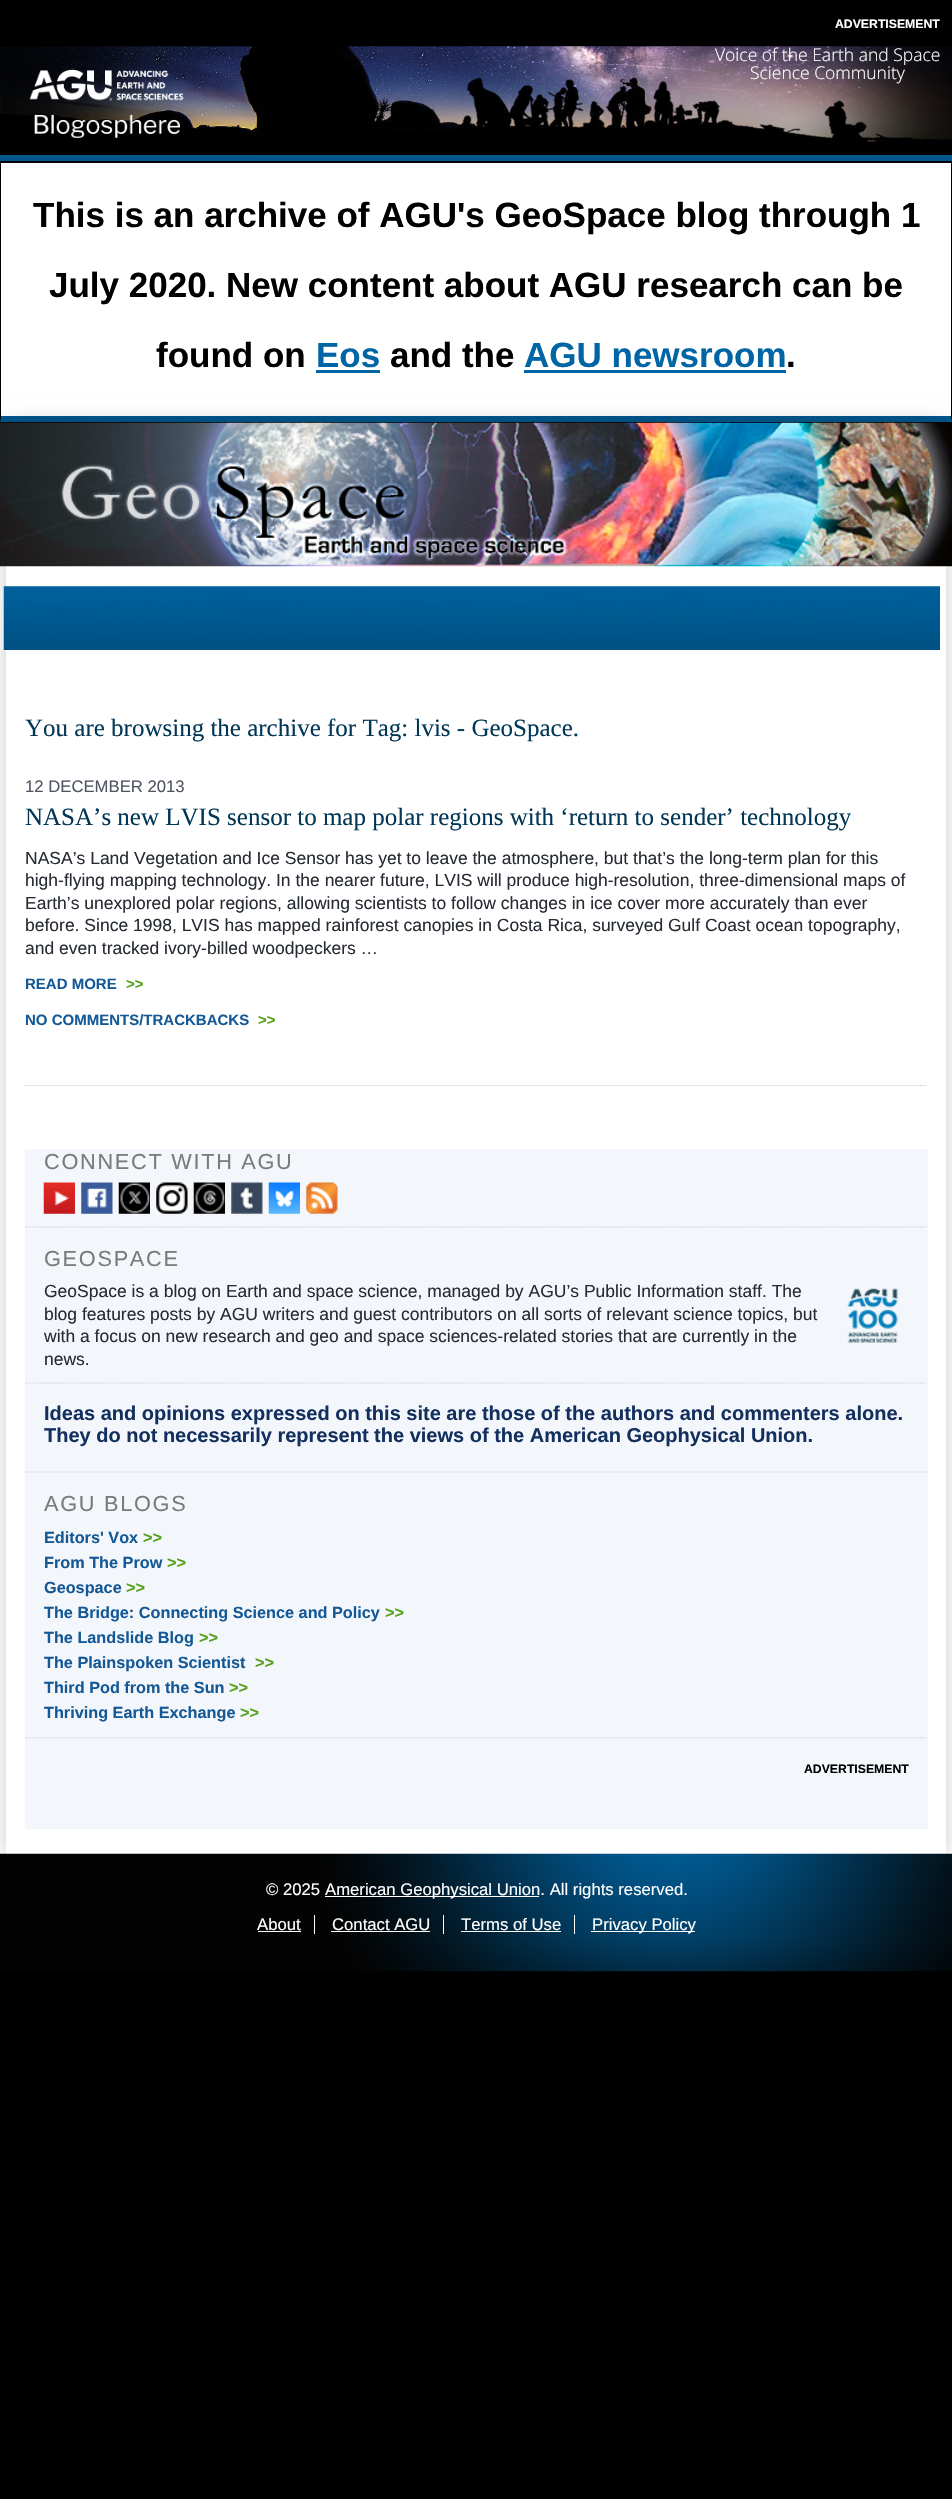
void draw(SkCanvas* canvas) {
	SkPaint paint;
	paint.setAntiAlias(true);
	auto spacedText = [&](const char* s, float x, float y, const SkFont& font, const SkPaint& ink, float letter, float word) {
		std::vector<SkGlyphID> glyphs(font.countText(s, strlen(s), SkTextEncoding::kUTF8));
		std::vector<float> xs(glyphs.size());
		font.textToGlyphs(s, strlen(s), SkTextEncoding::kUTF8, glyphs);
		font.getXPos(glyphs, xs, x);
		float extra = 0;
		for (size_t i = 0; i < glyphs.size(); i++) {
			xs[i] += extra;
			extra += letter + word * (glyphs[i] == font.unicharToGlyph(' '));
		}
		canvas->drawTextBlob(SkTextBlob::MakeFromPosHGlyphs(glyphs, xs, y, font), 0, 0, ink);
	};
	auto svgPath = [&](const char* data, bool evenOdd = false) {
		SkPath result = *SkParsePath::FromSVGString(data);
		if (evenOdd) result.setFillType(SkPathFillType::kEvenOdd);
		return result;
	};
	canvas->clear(0xff000000);
	SkFont f1(fontMgr->matchFamilyStyle("Liberation Sans", SkFontStyle::Bold()), 12.25);
	f1.setSubpixel(true);
	paint.setColor(0xffffffff);
	canvas->drawString("ADVERTISEMENT", 835, 28, f1, paint);
	paint.setColor(0xff00578e);
	canvas->drawRect(SkRect::MakeXYWH(0, 155, 952, 6), paint);
	canvas->drawImageRect(SkImages::DeferredFromEncodedData(SkData::MakeFromFileName("img1.png")), SkRect::MakeXYWH(0, 46, 952, 109), SkSamplingOptions());
	canvas->drawImageRect(SkImages::DeferredFromEncodedData(SkData::MakeFromFileName("img2.png")), SkRect::MakeXYWH(29, 69, 155, 70), SkSamplingOptions());
	SkFont f2(fontMgr->matchFamilyStyle("Open Sans", SkFontStyle(300, SkFontStyle::kNormal_Width, SkFontStyle::kUpright_Slant)), 17.5);
	f2.setSubpixel(true);
	paint.setColor(0xffffffff);
	canvas->drawString("Voice of the Earth and Space", 715, 61, f2, paint);
	canvas->drawString("Science Community", 750, 79, f2, paint);
	canvas->drawRect(SkRect::MakeXYWH(1, 163, 950, 253), paint);
	paint.setColor(0xff00578e);
	canvas->drawPath(svgPath("M952 422H0L1 416H951Z"), paint);
	paint.setColor(0xff000000);
	canvas->drawPath(svgPath("M0 422V161L1 162V416Z"), paint);
	SkFont f3(fontMgr->matchFamilyStyle("Liberation Sans", SkFontStyle::Bold()), 35);
	f3.setSubpixel(true);
	canvas->drawString("This is an archive of AGU's GeoSpace blog through 1", 33, 227, f3, paint);
	canvas->drawString("July 2020. New content about AGU research can be", 49, 297, f3, paint);
	canvas->drawString("found on", 156, 367, f3, paint);
	paint.setColor(0xff0065a4);
	canvas->drawString("Eos", 316, 367, f3, paint);
	canvas->drawRect(SkRect::MakeXYWH(316, 370, 64, 3), paint);
	paint.setColor(0xff000000);
	canvas->drawString("and the", 390, 367, f3, paint);
	paint.setColor(0xff0065a4);
	canvas->drawString("AGU newsroom", 524, 367, f3, paint);
	canvas->drawRect(SkRect::MakeXYWH(524, 370, 262, 3), paint);
	paint.setColor(0xff000000);
	canvas->drawString(".", 786, 367, f3, paint);
	paint.setColor(0xffffffff);
	canvas->drawRect(SkRect::MakeXYWH(0, 566, 952, 1288), paint);
	canvas->save();
	canvas->clipPath(svgPath("M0 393H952V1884H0ZM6 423H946V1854H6Z", true), true);
	paint.setColor(0x33000000);
	paint.setMaskFilter(SkMaskFilter::MakeBlur(kNormal_SkBlurStyle, 9.5));
	canvas->drawRect(SkRect::MakeXYWH(6, 423, 940, 1431), paint);
	paint.setMaskFilter(nullptr);
	canvas->restore();
	canvas->drawImageRect(SkImages::DeferredFromEncodedData(SkData::MakeFromFileName("img3.png")), SkRect::MakeXYWH(0, 422, 952, 145), SkSamplingOptions());
	canvas->drawImageRect(SkImages::DeferredFromEncodedData(SkData::MakeFromFileName("img4.png")), SkRect::MakeXYWH(3, 586, 937, 64), SkSamplingOptions());
	SkFont f4(fontMgr->matchFamilyStyle("Liberation Serif", SkFontStyle::Normal()), 25);
	f4.setSubpixel(true);
	paint.setColor(0xff013656);
	canvas->drawString("You are browsing the archive for Tag: lvis - GeoSpace.", 25, 736, f4, paint);
	paint.setStroke(true);
	paint.setStrokeWidth(1.2);
	paint.setColor(0xffcccccc);
	paint.setPathEffect(SkDashPathEffect::Make({{1.25f, 1.25f}}, 0));
	canvas->drawPath(svgPath("M25 1085.5H927.5"), paint);
	paint.setPathEffect(nullptr);
	SkFont f5(fontMgr->matchFamilyStyle("Liberation Sans", SkFontStyle::Normal()), 16.7);
	f5.setSubpixel(true);
	paint.setStroke(false);
	paint.setColor(0xff505561);
	canvas->drawString("12 DECEMBER 2013", 25, 792, f5, paint);
	paint.setColor(0xff013656);
	canvas->drawString("NASA’s new LVIS sensor to map polar regions with ‘return to sender’ technology", 25, 825, f4, paint);
	SkFont f6(fontMgr->matchFamilyStyle("Liberation Sans", SkFontStyle::Normal()), 17.5);
	f6.setSubpixel(true);
	paint.setColor(0xff272b33);
	canvas->drawString("NASA’s Land Vegetation and Ice Sensor has yet to leave the atmosphere, but that’s the long-term plan for this", 25, 864, f6, paint);
	canvas->drawString("high-flying mapping technology. In the nearer future, LVIS will produce high-resolution, three-dimensional maps of", 25, 886, f6, paint);
	canvas->drawString("Earth’s unexplored polar regions, allowing scientists to follow changes in ice cover more accurately than ever", 25, 909, f6, paint);
	canvas->drawString("before. Since 1998, LVIS has mapped rainforest canopies in Costa Rica, surveyed Gulf Coast ocean topography,", 25, 931, f6, paint);
	canvas->drawString("and even tracked ivory-billed woodpeckers …", 25, 954, f6, paint);
	SkFont f7(fontMgr->matchFamilyStyle("Liberation Sans", SkFontStyle::Bold()), 15);
	f7.setSubpixel(true);
	paint.setColor(0xff145996);
	canvas->drawString("READ MORE", 25, 989, f7, paint);
	paint.setColor(0xff57a11c);
	canvas->drawString(">>", 126, 989, f7, paint);
	paint.setColor(0xff145996);
	canvas->drawString("NO COMMENTS/TRACKBACKS", 25, 1025, f7, paint);
	paint.setColor(0xff57a11c);
	canvas->drawString(">>", 258, 1025, f7, paint);
	paint.setColor(0xfff3f6fb);
	canvas->drawRect(SkRect::MakeXYWH(25, 1149, 903, 680), paint);
	paint.setStroke(true);
	paint.setColor(0xffcdcdcd);
	paint.setPathEffect(SkDashPathEffect::Make({{1.25f, 1.25f}}, 0));
	canvas->drawPath(svgPath("M25 1227H927.5"), paint);
	paint.setPathEffect(nullptr);
	SkFont f8(fontMgr->matchFamilyStyle("Liberation Sans", SkFontStyle::Normal()), 21.75);
	f8.setSubpixel(true);
	paint.setStroke(false);
	paint.setColor(0xff7a7b7a);
	spacedText("CONNECT WITH AGU", 44, 1169, f8, paint, 1.7, 0);
	canvas->drawImageRect(SkImages::DeferredFromEncodedData(SkData::MakeFromFileName("img5.png")), SkRect::MakeXYWH(43, 1182, 32, 32), SkSamplingOptions());
	canvas->drawImageRect(SkImages::DeferredFromEncodedData(SkData::MakeFromFileName("img6.png")), SkRect::MakeXYWH(81, 1182, 32, 32), SkSamplingOptions());
	canvas->drawImageRect(SkImages::DeferredFromEncodedData(SkData::MakeFromFileName("img7.png")), SkRect::MakeXYWH(118, 1182, 32, 32), SkSamplingOptions());
	canvas->drawImageRect(SkImages::DeferredFromEncodedData(SkData::MakeFromFileName("img8.png")), SkRect::MakeXYWH(156, 1182, 32, 32), SkSamplingOptions());
	canvas->drawImageRect(SkImages::DeferredFromEncodedData(SkData::MakeFromFileName("img9.png")), SkRect::MakeXYWH(193, 1182, 32, 32), SkSamplingOptions());
	canvas->drawImageRect(SkImages::DeferredFromEncodedData(SkData::MakeFromFileName("img10.png")), SkRect::MakeXYWH(231, 1182, 32, 32), SkSamplingOptions());
	canvas->drawImageRect(SkImages::DeferredFromEncodedData(SkData::MakeFromFileName("img11.png")), SkRect::MakeXYWH(268, 1182, 32, 32), SkSamplingOptions());
	canvas->drawImageRect(SkImages::DeferredFromEncodedData(SkData::MakeFromFileName("img12.png")), SkRect::MakeXYWH(306, 1182, 32, 32), SkSamplingOptions());
	paint.setStroke(true);
	paint.setColor(0xffcdcdcd);
	paint.setPathEffect(SkDashPathEffect::Make({{1.25f, 1.25f}}, 0));
	canvas->drawPath(svgPath("M25 1383H927.5"), paint);
	paint.setPathEffect(nullptr);
	paint.setStroke(false);
	paint.setColor(0xff7a7b7a);
	spacedText("GEOSPACE", 44, 1266, f8, paint, 1.7, 0);
	paint.setColor(0xff272b33);
	canvas->drawString("GeoSpace is a blog on Earth and space science, managed by AGU’s Public Information staff. The", 44, 1297, f6, paint);
	canvas->drawImageRect(SkImages::DeferredFromEncodedData(SkData::MakeFromFileName("img13.png")), SkRect::MakeXYWH(847, 1288, 51, 55), SkSamplingOptions());
	canvas->drawString("blog features posts by AGU writers and guest contributors on all sorts of relevant science topics, but", 44, 1320, f6, paint);
	canvas->drawString("with a focus on new research and geo and space sciences-related stories that are currently in the", 44, 1342, f6, paint);
	canvas->drawString("news.", 44, 1365, f6, paint);
	paint.setStroke(true);
	paint.setColor(0xffcdcdcd);
	paint.setPathEffect(SkDashPathEffect::Make({{1.25f, 1.25f}}, 0));
	canvas->drawPath(svgPath("M25 1472H927.5"), paint);
	paint.setPathEffect(nullptr);
	SkFont f9(fontMgr->matchFamilyStyle("Liberation Sans", SkFontStyle::Bold()), 20);
	f9.setSubpixel(true);
	paint.setStroke(false);
	paint.setColor(0xff122f5e);
	canvas->drawString("Ideas and opinions expressed on this site are those of the authors and commenters alone.", 44, 1420, f9, paint);
	canvas->drawString("They do not necessarily represent the views of the American Geophysical Union.", 44, 1442, f9, paint);
	paint.setStroke(true);
	paint.setColor(0xffcdcdcd);
	paint.setPathEffect(SkDashPathEffect::Make({{1.25f, 1.25f}}, 0));
	canvas->drawPath(svgPath("M25 1738H927.5"), paint);
	paint.setPathEffect(nullptr);
	paint.setStroke(false);
	paint.setColor(0xff7a7b7a);
	spacedText("AGU BLOGS", 44, 1511, f8, paint, 1.7, 0);
	SkFont f10(fontMgr->matchFamilyStyle("Liberation Sans", SkFontStyle::Bold()), 16.25);
	f10.setSubpixel(true);
	paint.setColor(0xff145996);
	canvas->drawString("Editors' Vox", 44, 1543, f10, paint);
	paint.setColor(0xff57a11c);
	canvas->drawString(">>", 143, 1543, f10, paint);
	paint.setColor(0xff145996);
	canvas->drawString("From The Prow", 44, 1568, f10, paint);
	paint.setColor(0xff57a11c);
	canvas->drawString(">>", 167, 1568, f10, paint);
	paint.setColor(0xff145996);
	canvas->drawString("Geospace", 44, 1593, f10, paint);
	paint.setColor(0xff57a11c);
	canvas->drawString(">>", 126, 1593, f10, paint);
	paint.setColor(0xff145996);
	canvas->drawString("The Bridge: Connecting Science and Policy", 44, 1618, f10, paint);
	paint.setColor(0xff57a11c);
	canvas->drawString(">>", 385, 1618, f10, paint);
	paint.setColor(0xff145996);
	canvas->drawString("The Landslide Blog", 44, 1643, f10, paint);
	paint.setColor(0xff57a11c);
	canvas->drawString(">>", 199, 1643, f10, paint);
	paint.setColor(0xff145996);
	canvas->drawString("The Plainspoken Scientist", 44, 1668, f10, paint);
	paint.setColor(0xff57a11c);
	canvas->drawString(">>", 255, 1668, f10, paint);
	paint.setColor(0xff145996);
	canvas->drawString("Third Pod from the Sun", 44, 1693, f10, paint);
	paint.setColor(0xff57a11c);
	canvas->drawString(">>", 229, 1693, f10, paint);
	paint.setColor(0xff145996);
	canvas->drawString("Thriving Earth Exchange", 44, 1718, f10, paint);
	paint.setColor(0xff57a11c);
	canvas->drawString(">>", 240, 1718, f10, paint);
	paint.setColor(0xff000000);
	canvas->drawString("ADVERTISEMENT", 804, 1773, f1, paint);
	canvas->drawImageRect(SkImages::DeferredFromEncodedData(SkData::MakeFromFileName("img14.png")), SkRect::MakeXYWH(0, 1853, 952, 119), SkSamplingOptions());
	paint.setColor(0xffffffff);
	canvas->drawString("© 2025", 266, 1895, f5, paint);
	canvas->drawRect(SkRect::MakeXYWH(325, 1896, 214, 1), paint);
	canvas->drawString("American Geophysical Union. All rights reserved.", 325, 1895, f5, paint);
	canvas->drawString("About", 257, 1930, f5, paint);
	canvas->drawRect(SkRect::MakeXYWH(314, 1915, 1, 19), paint);
	canvas->drawRect(SkRect::MakeXYWH(258, 1931, 43, 1), paint);
	canvas->drawString("Contact AGU", 332, 1930, f5, paint);
	canvas->drawRect(SkRect::MakeXYWH(443, 1915, 1, 19), paint);
	canvas->drawRect(SkRect::MakeXYWH(331, 1931, 99, 1), paint);
	canvas->drawString("Terms of Use", 461, 1930, f5, paint);
	canvas->drawRect(SkRect::MakeXYWH(574, 1915, 1, 19), paint);
	canvas->drawRect(SkRect::MakeXYWH(461, 1931, 100, 1), paint);
	canvas->drawRect(SkRect::MakeXYWH(591, 1931, 104, 1), paint);
	canvas->drawString("Privacy Policy", 592, 1930, f5, paint);
}
